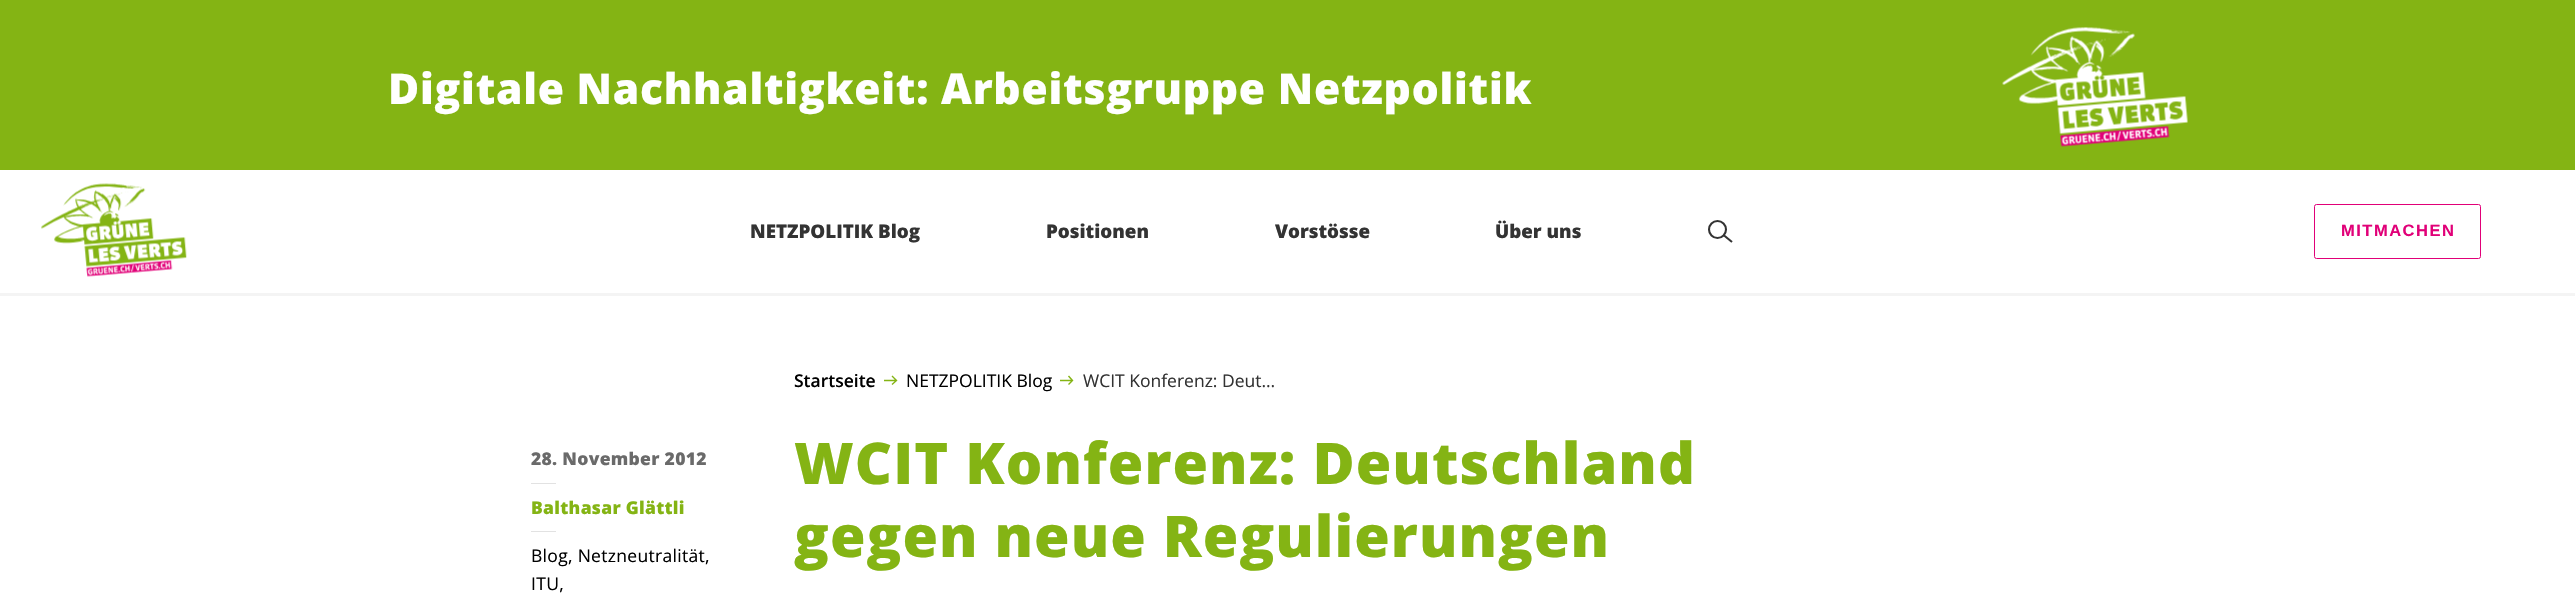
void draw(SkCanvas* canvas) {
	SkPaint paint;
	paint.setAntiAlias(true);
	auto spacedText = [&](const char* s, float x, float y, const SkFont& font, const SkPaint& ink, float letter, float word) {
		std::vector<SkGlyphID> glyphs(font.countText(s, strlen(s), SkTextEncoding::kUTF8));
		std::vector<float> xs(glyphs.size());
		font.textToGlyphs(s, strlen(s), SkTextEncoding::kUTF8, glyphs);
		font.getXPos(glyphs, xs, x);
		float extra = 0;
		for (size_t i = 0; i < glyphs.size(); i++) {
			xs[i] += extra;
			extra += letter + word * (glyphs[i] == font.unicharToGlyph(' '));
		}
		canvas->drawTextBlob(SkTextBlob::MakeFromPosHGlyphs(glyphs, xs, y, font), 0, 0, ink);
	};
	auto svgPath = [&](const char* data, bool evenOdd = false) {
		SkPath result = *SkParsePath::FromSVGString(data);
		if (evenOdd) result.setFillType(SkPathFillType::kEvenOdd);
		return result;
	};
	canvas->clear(0xffffffff);
	paint.setColor(0xff84b414);
	canvas->drawRect(SkRect::MakeXYWH(0, 0, 2575, 170), paint);
	SkFont f1(fontMgr->matchFamilyStyle("Open Sans", SkFontStyle(800, SkFontStyle::kNormal_Width, SkFontStyle::kUpright_Slant)), 42.5);
	f1.setSubpixel(true);
	paint.setColor(0xffffffff);
	spacedText("Digitale Nachhaltigkeit: Arbeitsgruppe Netzpolitik", 388, 104, f1, paint, 0.77, 0);
	canvas->drawImageRect(SkImages::DeferredFromEncodedData(SkData::MakeFromFileName("img1.png")), SkRect::MakeXYWH(2002, 27, 186, 120), SkSamplingOptions());
	paint.setColor(0xfff4f4f4);
	canvas->drawRect(SkRect::MakeXYWH(0, 293, 2575, 3), paint);
	canvas->drawImageRect(SkImages::DeferredFromEncodedData(SkData::MakeFromFileName("img2.png")), SkRect::MakeXYWH(41, 183, 146, 94), SkSamplingOptions());
	SkFont f2(fontMgr->matchFamilyStyle("Open Sans", SkFontStyle(800, SkFontStyle::kNormal_Width, SkFontStyle::kUpright_Slant)), 18.75);
	f2.setSubpixel(true);
	paint.setColor(0xff333333);
	canvas->drawString("NETZPOLITIK Blog", 750, 238, f2, paint);
	canvas->drawString("Positionen", 1046, 238, f2, paint);
	canvas->drawString("Vorstösse", 1275, 238, f2, paint);
	canvas->drawString("Über uns", 1495, 238, f2, paint);
	paint.setStroke(true);
	paint.setStrokeWidth(2.1);
	canvas->drawCircle(1717.5, 229.5, 8.5, paint);
	canvas->drawPath(svgPath("M1723.5 235L1732 242"), paint);
	paint.setStrokeWidth(1);
	paint.setColor(0xffe10078);
	canvas->drawRoundRect(SkRect::MakeXYWH(2314.5, 204.5, 166, 54), 2, 2, paint);
	SkFont f3(fontMgr->matchFamilyStyle("Liberation Sans", SkFontStyle::Bold()), 16.5);
	f3.setSubpixel(true);
	paint.setStroke(false);
	spacedText("MITMACHEN", 2341, 236, f3, paint, 1.5, 0);
	SkFont f4(fontMgr->matchFamilyStyle("Open Sans", SkFontStyle(800, SkFontStyle::kNormal_Width, SkFontStyle::kUpright_Slant)), 17.5);
	f4.setSubpixel(true);
	paint.setColor(0xff6a6a6a);
	spacedText("28. November 2012", 531, 465, f4, paint, 0.3, 0);
	paint.setColor(0xffe2e2e2);
	canvas->drawRect(SkRect::MakeXYWH(531, 483, 25, 1), paint);
	paint.setColor(0xff84b414);
	spacedText("Balthasar Glättli", 531, 514, f4, paint, 0.3, 0);
	paint.setColor(0xffe2e2e2);
	canvas->drawRect(SkRect::MakeXYWH(531, 531, 25, 1), paint);
	SkFont f5(fontMgr->matchFamilyStyle("Open Sans", SkFontStyle::Normal()), 17.5);
	f5.setSubpixel(true);
	paint.setColor(0xff000000);
	spacedText("Blog, Netzneutralität,", 531, 562, f5, paint, 0.3, 0);
	spacedText("ITU,", 531, 590, f5, paint, 0.3, 0);
	SkFont f6(fontMgr->matchFamilyStyle("Open Sans", SkFontStyle(600, SkFontStyle::kNormal_Width, SkFontStyle::kUpright_Slant)), 17.5);
	f6.setSubpixel(true);
	canvas->drawString("Startseite", 794, 387, f6, paint);
	paint.setStroke(true);
	paint.setStrokeWidth(1.4);
	paint.setColor(0xff84b414);
	canvas->drawPath(svgPath("M892 376L896.5 380.5L892 384.5M896.5 380.5H884"), paint);
	paint.setStroke(false);
	paint.setColor(0xff000000);
	canvas->drawString("NETZPOLITIK Blog", 906, 387, f5, paint);
	paint.setStroke(true);
	paint.setColor(0xff84b414);
	canvas->drawPath(svgPath("M1068.5 376L1072.5 380.5L1068.5 384.5M1072.5 380.5H1060"), paint);
	paint.setStroke(false);
	paint.setColor(0xff333333);
	canvas->drawString("WCIT Konferenz: Deut…", 1083, 387, f5, paint);
	SkFont f7(fontMgr->matchFamilyStyle("Open Sans", SkFontStyle(800, SkFontStyle::kNormal_Width, SkFontStyle::kUpright_Slant)), 57.5);
	f7.setSubpixel(true);
	paint.setColor(0xff84b414);
	spacedText("WCIT Konferenz: Deutschland", 794, 484, f7, paint, 1.05, 0);
	spacedText("gegen neue Regulierungen", 794, 557, f7, paint, 1.05, 0);
}
